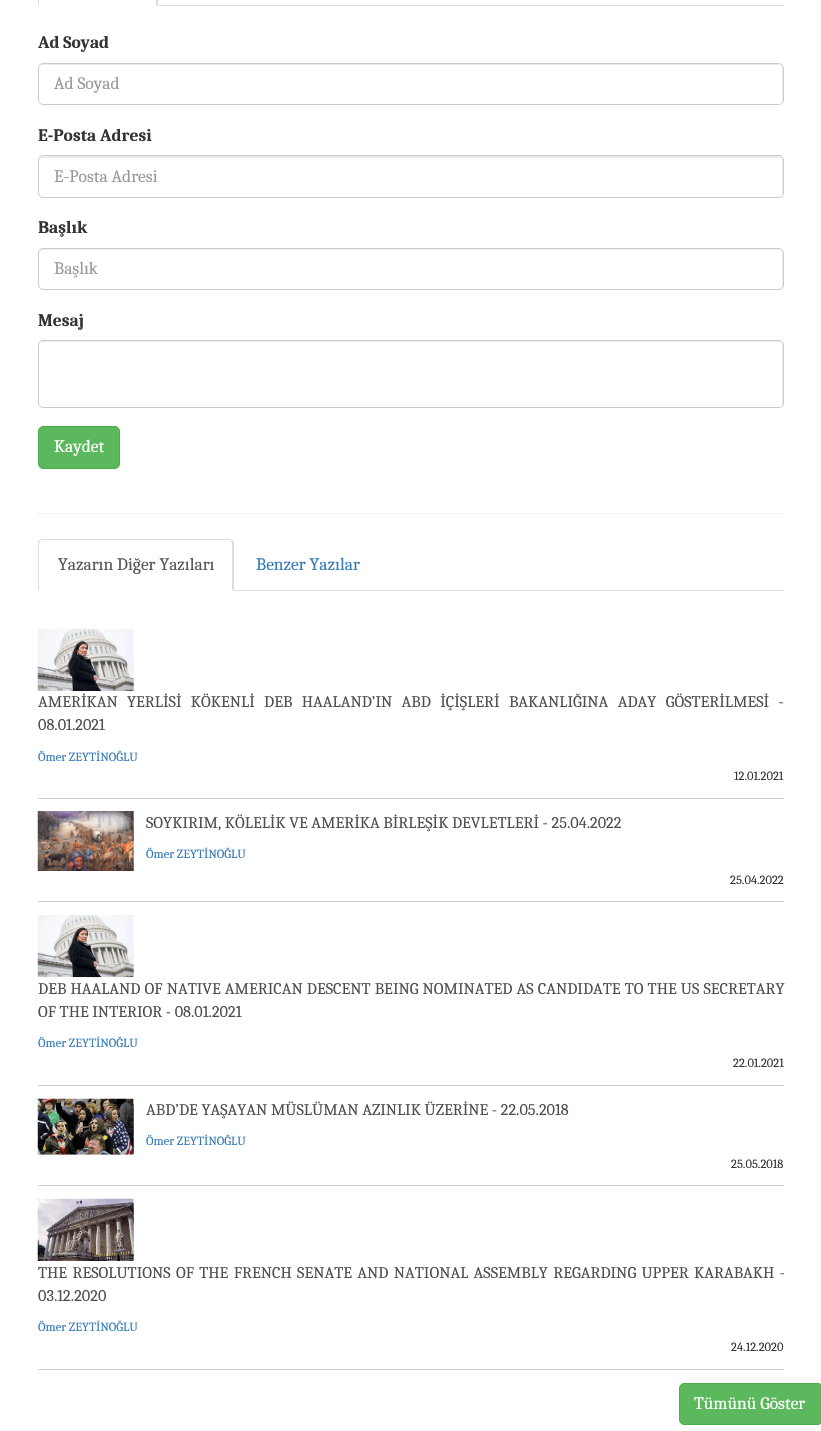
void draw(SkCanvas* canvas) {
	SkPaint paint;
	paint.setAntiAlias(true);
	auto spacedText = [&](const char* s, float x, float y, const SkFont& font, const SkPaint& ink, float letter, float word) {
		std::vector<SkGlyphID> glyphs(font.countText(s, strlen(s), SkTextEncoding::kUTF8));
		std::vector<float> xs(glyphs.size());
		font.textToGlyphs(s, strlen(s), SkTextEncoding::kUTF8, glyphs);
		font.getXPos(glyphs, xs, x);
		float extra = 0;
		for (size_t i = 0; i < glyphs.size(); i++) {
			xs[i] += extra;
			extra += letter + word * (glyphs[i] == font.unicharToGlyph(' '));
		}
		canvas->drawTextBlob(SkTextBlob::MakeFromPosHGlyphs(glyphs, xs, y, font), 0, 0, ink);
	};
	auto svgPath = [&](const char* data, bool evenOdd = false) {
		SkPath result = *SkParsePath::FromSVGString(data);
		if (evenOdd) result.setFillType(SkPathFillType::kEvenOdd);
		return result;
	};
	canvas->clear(0xffffffff);
	paint.setColor(0xffdddddd);
	canvas->drawRect(SkRect::MakeXYWH(158, 5, 626, 1), paint);
	canvas->drawPath(svgPath("M156-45L158-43V6L156 5V-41C156-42 156-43 155-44Z"), paint);
	canvas->drawPath(svgPath("M39-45C38-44 38-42 38-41V6L39 5V-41L40-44Z"), paint);
	SkFont f1(fontMgr->matchFamilyStyle("Caladea", SkFontStyle::Bold()), 17.5);
	f1.setSubpixel(true);
	paint.setColor(0xff333333);
	canvas->drawString("Ad Soyad", 38, 48, f1, paint);
	paint.setColor(0xffececec);
	canvas->drawPath(svgPath("M42 65H779C781 65 782 67 782 69V103C782 102 783 101 783 100V68C783 66 781 64 779 64H43C41 64 39 66 39 68V69C39 67 40 65 42 65Z"), paint);
	paint.setStroke(true);
	paint.setStrokeWidth(1);
	paint.setColor(0xffcccccc);
	canvas->drawRoundRect(SkRect::MakeXYWH(38.5, 63.5, 745, 41), 4.5, 4.5, paint);
	SkFont f2(fontMgr->matchFamilyStyle("Caladea", SkFontStyle::Normal()), 17.5);
	f2.setSubpixel(true);
	paint.setStroke(false);
	paint.setColor(0xff999999);
	canvas->drawString("Ad Soyad", 54, 89, f2, paint);
	paint.setColor(0xff333333);
	canvas->drawString("E-Posta Adresi", 38, 141, f1, paint);
	paint.setColor(0xffececec);
	canvas->drawPath(svgPath("M42 158H779C781 158 782 159 782 161V195C783 194 783 193 783 192V160C783 158 781 156 779 156H43C41 156 39 158 39 160V161C39 159 40 158 42 158Z"), paint);
	paint.setStroke(true);
	paint.setColor(0xffcccccc);
	canvas->drawRoundRect(SkRect::MakeXYWH(38.5, 155.5, 745, 42), 4.5, 4.5, paint);
	paint.setStroke(false);
	paint.setColor(0xff999999);
	canvas->drawString("E-Posta Adresi", 54, 182, f2, paint);
	paint.setColor(0xff333333);
	canvas->drawString("Başlık", 38, 233, f1, paint);
	paint.setColor(0xffececec);
	canvas->drawPath(svgPath("M42 250H779C781 250 782 252 782 254V288C782 287 783 286 783 285V253C783 251 781 249 779 249H43C41 249 39 251 39 253V254C39 252 40 250 42 250Z"), paint);
	paint.setStroke(true);
	paint.setColor(0xffcccccc);
	canvas->drawRoundRect(SkRect::MakeXYWH(38.5, 248.5, 745, 41), 4.5, 4.5, paint);
	paint.setStroke(false);
	paint.setColor(0xff999999);
	canvas->drawString("Başlık", 54, 274, f2, paint);
	paint.setColor(0xff333333);
	canvas->drawString("Mesaj", 38, 326, f1, paint);
	paint.setColor(0xffececec);
	canvas->drawPath(svgPath("M42 342H779C781 342 782 344 782 346V405C783 404 783 403 783 402V345C783 343 781 341 779 341H43C41 341 39 343 39 345V346C39 344 40 342 42 342Z"), paint);
	paint.setStroke(true);
	paint.setColor(0xffcccccc);
	canvas->drawRoundRect(SkRect::MakeXYWH(38.5, 340.5, 745, 67), 4.5, 4.5, paint);
	paint.setStroke(false);
	paint.setColor(0xff5cb85c);
	canvas->drawRoundRect(SkRect::MakeXYWH(38.5, 426.5, 81, 42), 4.5, 4.5, paint);
	paint.setStroke(true);
	paint.setColor(0xff4cae4c);
	canvas->drawRoundRect(SkRect::MakeXYWH(38.5, 426.5, 81, 42), 4.5, 4.5, paint);
	paint.setStroke(false);
	paint.setColor(0xffffffff);
	canvas->drawString("Kaydet", 54, 452, f2, paint);
	paint.setColor(0xffeeeeee);
	canvas->drawRect(SkRect::MakeXYWH(38, 513, 746, 1), paint);
	paint.setColor(0xffdddddd);
	canvas->drawRect(SkRect::MakeXYWH(234, 590, 550, 1), paint);
	canvas->drawPath(svgPath("M42 539C41 539 40 540 39 540L40 541L42 540H230L231 541L232 540L229 539Z"), paint);
	canvas->drawPath(svgPath("M232 540L234 542V591L232 590V544L231 541Z"), paint);
	canvas->drawPath(svgPath("M39 540C38 541 38 543 38 544V591L39 590V544L40 541Z"), paint);
	paint.setColor(0xff555555);
	canvas->drawString("Yazarın Diğer Yazıları", 58, 570, f2, paint);
	paint.setColor(0xff337ab7);
	canvas->drawString("Benzer Yazılar", 256, 570, f2, paint);
	paint.setColor(0xffcccccc);
	canvas->drawRect(SkRect::MakeXYWH(38, 798, 746, 1), paint);
	canvas->drawImageRect(SkImages::DeferredFromEncodedData(SkData::MakeFromFileName("img1.png")), SkRect::MakeXYWH(37, 628, 97, 63), SkSamplingOptions());
	SkFont f3(fontMgr->matchFamilyStyle("Caladea", SkFontStyle::Normal()), 16.25);
	f3.setSubpixel(true);
	paint.setColor(0xff4e4e4e);
	spacedText("AMERİKAN YERLİSİ KÖKENLİ DEB HAALAND’IN ABD İÇİŞLERİ BAKANLIĞINA ADAY GÖSTERİLMESİ -", 38, 707, f3, paint, 0, 5.75);
	canvas->drawString("08.01.2021", 38, 730, f3, paint);
	SkFont f4(fontMgr->matchFamilyStyle("Caladea", SkFontStyle::Normal()), 12.5);
	f4.setSubpixel(true);
	paint.setColor(0xff337ab7);
	canvas->drawString("Ömer ZEYTİNOĞLU", 38, 761, f4, paint);
	paint.setColor(0xff333333);
	canvas->drawString("12.01.2021", 734, 780, f4, paint);
	paint.setColor(0xffcccccc);
	canvas->drawRect(SkRect::MakeXYWH(38, 901, 746, 1), paint);
	canvas->drawImageRect(SkImages::DeferredFromEncodedData(SkData::MakeFromFileName("img2.png")), SkRect::MakeXYWH(37, 811, 97, 60), SkSamplingOptions());
	paint.setColor(0xff4e4e4e);
	canvas->drawString("SOYKIRIM, KÖLELİK VE AMERİKA BİRLEŞİK DEVLETLERİ - 25.04.2022", 146, 828, f3, paint);
	paint.setColor(0xff337ab7);
	canvas->drawString("Ömer ZEYTİNOĞLU", 146, 858, f4, paint);
	paint.setColor(0xff333333);
	canvas->drawString("25.04.2022", 730, 884, f4, paint);
	paint.setColor(0xffcccccc);
	canvas->drawRect(SkRect::MakeXYWH(38, 1085, 746, 1), paint);
	canvas->drawImageRect(SkImages::DeferredFromEncodedData(SkData::MakeFromFileName("img3.png")), SkRect::MakeXYWH(37, 915, 97, 63), SkSamplingOptions());
	paint.setColor(0xff4e4e4e);
	spacedText("DEB HAALAND OF NATIVE AMERICAN DESCENT BEING NOMINATED AS CANDIDATE TO THE US SECRETARY", 38, 994, f3, paint, 0, 0.5);
	canvas->drawString("OF THE INTERIOR - 08.01.2021", 38, 1017, f3, paint);
	paint.setColor(0xff337ab7);
	canvas->drawString("Ömer ZEYTİNOĞLU", 38, 1047, f4, paint);
	paint.setColor(0xff333333);
	canvas->drawString("22.01.2021", 733, 1067, f4, paint);
	paint.setColor(0xffcccccc);
	canvas->drawRect(SkRect::MakeXYWH(38, 1185, 746, 1), paint);
	canvas->drawImageRect(SkImages::DeferredFromEncodedData(SkData::MakeFromFileName("img4.png")), SkRect::MakeXYWH(37, 1098, 97, 57), SkSamplingOptions());
	paint.setColor(0xff4e4e4e);
	canvas->drawString("ABD’DE YAŞAYAN MÜSLÜMAN AZINLIK ÜZERİNE - 22.05.2018", 146, 1115, f3, paint);
	paint.setColor(0xff337ab7);
	canvas->drawString("Ömer ZEYTİNOĞLU", 146, 1145, f4, paint);
	paint.setColor(0xff333333);
	canvas->drawString("25.05.2018", 731, 1168, f4, paint);
	paint.setColor(0xffcccccc);
	canvas->drawRect(SkRect::MakeXYWH(38, 1369, 746, 1), paint);
	canvas->drawImageRect(SkImages::DeferredFromEncodedData(SkData::MakeFromFileName("img5.png")), SkRect::MakeXYWH(37, 1198, 97, 63), SkSamplingOptions());
	canvas->save();
	canvas->clipRect(SkRect::MakeXYWH(38, 1261, 746, 47));
	paint.setColor(0xff4e4e4e);
	spacedText("THE RESOLUTIONS OF THE FRENCH SENATE AND NATIONAL ASSEMBLY REGARDING UPPER KARABAKH -", 38, 1278, f3, paint, 0, 1.75);
	canvas->restore();
	canvas->drawString("03.12.2020", 38, 1301, f3, paint);
	paint.setColor(0xff337ab7);
	canvas->drawString("Ömer ZEYTİNOĞLU", 38, 1331, f4, paint);
	paint.setColor(0xff333333);
	canvas->drawString("24.12.2020", 731, 1351, f4, paint);
	paint.setColor(0xff5cb85c);
	canvas->drawRoundRect(SkRect::MakeXYWH(679.5, 1383.5, 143, 41), 4.5, 4.5, paint);
	paint.setStroke(true);
	paint.setColor(0xff4cae4c);
	canvas->drawRoundRect(SkRect::MakeXYWH(679.5, 1383.5, 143, 41), 4.5, 4.5, paint);
	paint.setStroke(false);
	paint.setColor(0xffffffff);
	canvas->drawString("Tümünü Göster", 694, 1409, f2, paint);
}
